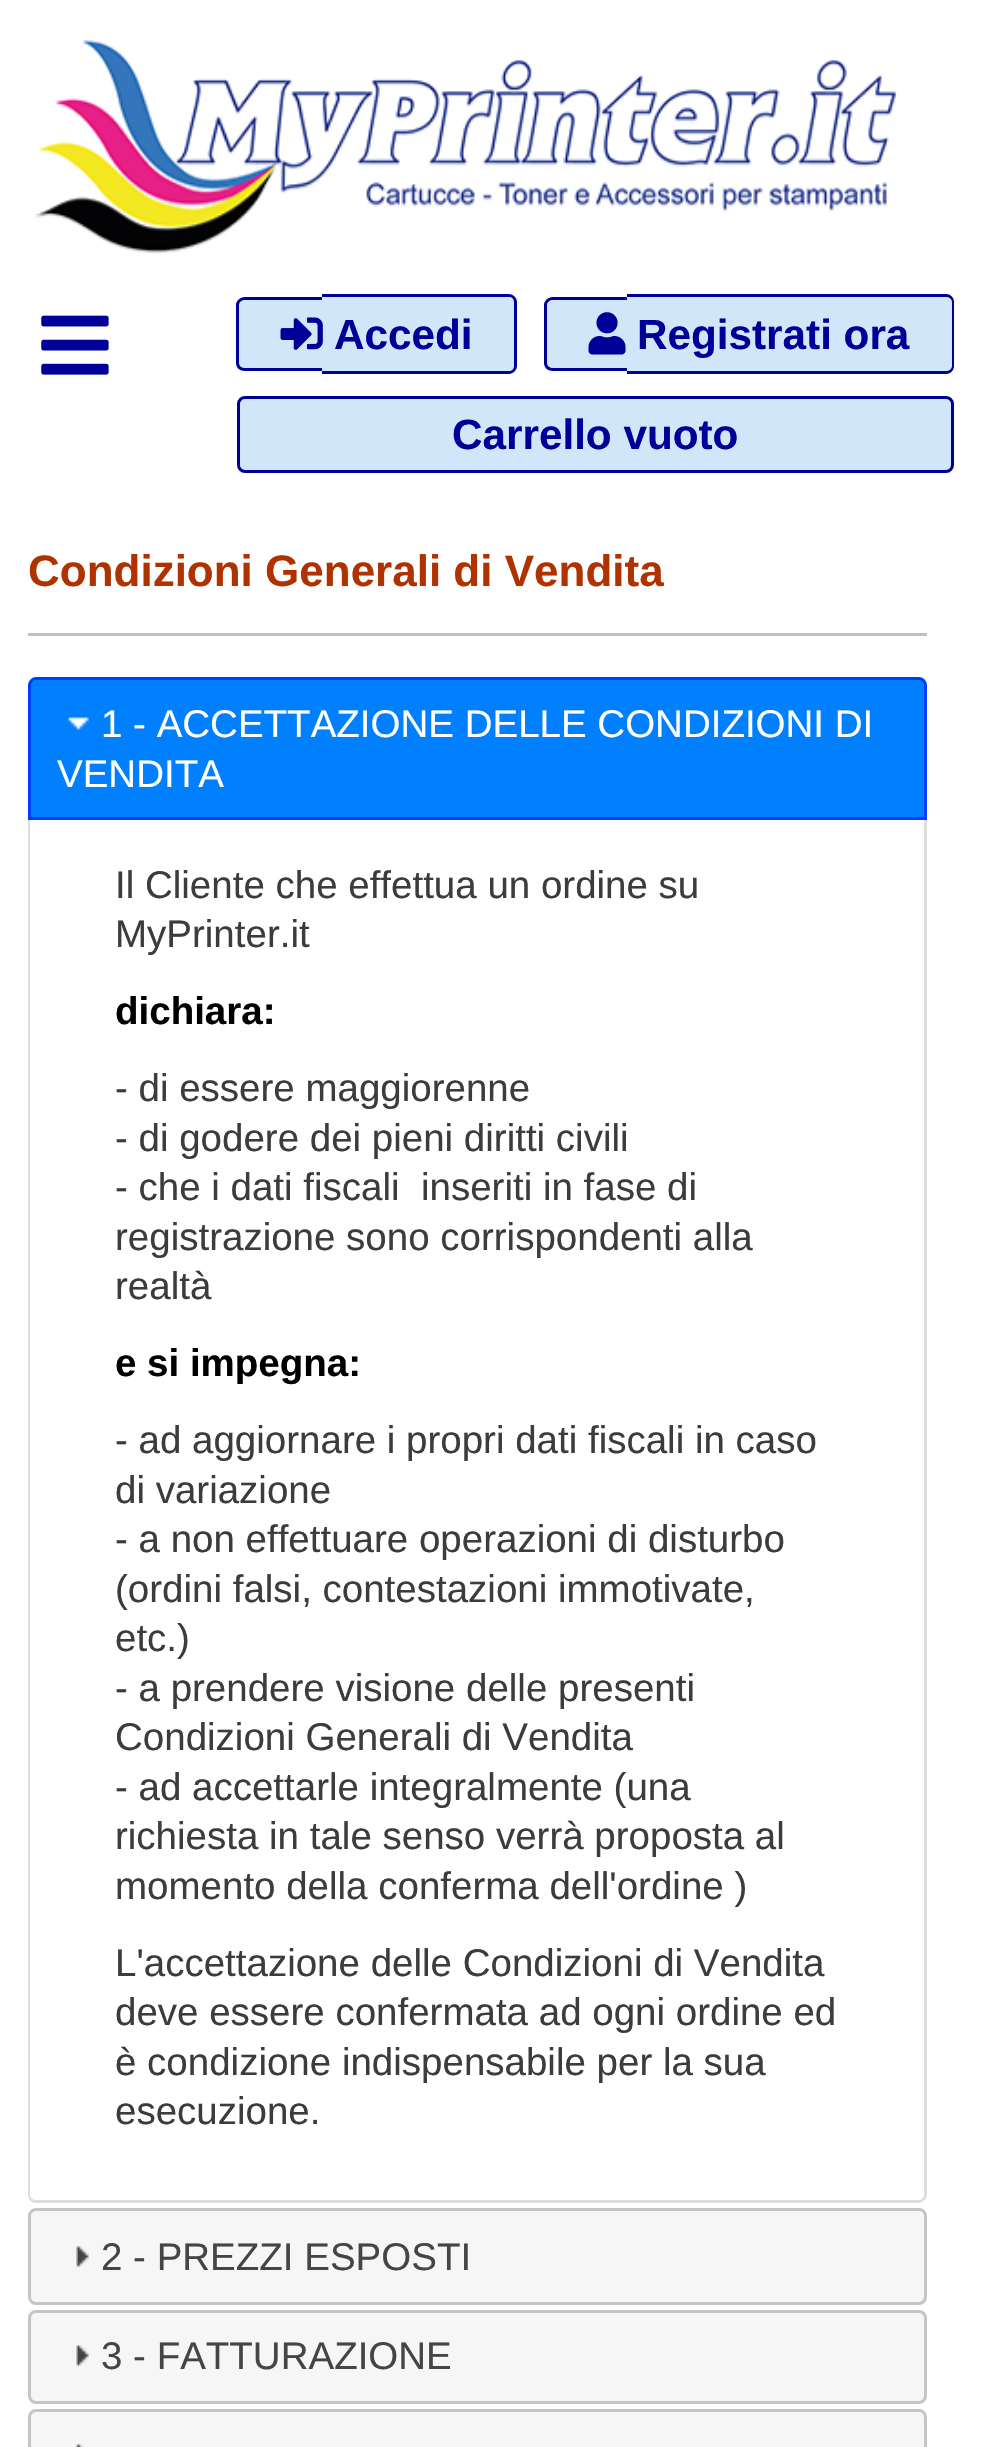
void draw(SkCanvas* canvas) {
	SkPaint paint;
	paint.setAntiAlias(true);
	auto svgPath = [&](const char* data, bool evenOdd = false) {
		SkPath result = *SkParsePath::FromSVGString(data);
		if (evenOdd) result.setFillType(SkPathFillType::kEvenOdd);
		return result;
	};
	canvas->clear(0xffffffff);
	canvas->drawImageRect(SkImages::DeferredFromEncodedData(SkData::MakeFromFileName("img1.png")), SkRect::MakeXYWH(35, 39, 862, 215), SkSamplingOptions());
	canvas->drawImageRect(SkImages::DeferredFromEncodedData(SkData::MakeFromFileName("img2.png")), SkRect::MakeXYWH(41, 315, 68, 60), SkSamplingOptions());
	paint.setColor(0xffd2e6fa);
	canvas->drawPath(svgPath("M245 297H322V371H245C240.5 371 237 367.5 237 363V305C237 300.5 240.5 297 245 297Z"), paint);
	paint.setColor(0xff000099);
	canvas->drawPath(svgPath("M245 297H322V371H245C240 371 236 368 236 363V305C236 301 240 297 245 297ZM245 300H322V368H245C242 368 239 366 239 363V305C239 302 242 300 245 300Z", true), paint);
	paint.setColor(0xffd2e6fa);
	canvas->drawPath(svgPath("M322 294H509C513.5 294 517 297.5 517 302V366C517 370.5 513.5 374 509 374H322Z"), paint);
	paint.setColor(0xff000099);
	canvas->drawPath(svgPath("M322 294H509C513 294 517 298 517 302V366C517 370 513 374 509 374H322ZM322 297H509C512 297 514 299 514 302V366C514 369 512 371 509 371H322Z", true), paint);
	canvas->drawImageRect(SkImages::DeferredFromEncodedData(SkData::MakeFromFileName("img3.png")), SkRect::MakeXYWH(280, 317, 43, 33), SkSamplingOptions());
	SkFont f1(fontMgr->matchFamilyStyle("Liberation Sans", SkFontStyle::Bold()), 42.25);
	f1.setSubpixel(true);
	canvas->drawString("Accedi", 334, 349, f1, paint);
	paint.setColor(0xffd2e6fa);
	canvas->drawPath(svgPath("M553 297H627V371H553C548.5 371 545 367.5 545 363V305C545 300.5 548.5 297 553 297Z"), paint);
	paint.setColor(0xff000099);
	canvas->drawPath(svgPath("M553 297H627V371H553C548 371 544 368 544 363V305C544 301 548 297 553 297ZM553 300H627V368H553C550 368 547 366 547 363V305C547 302 550 300 553 300Z", true), paint);
	paint.setColor(0xffd2e6fa);
	canvas->drawPath(svgPath("M627 294H946C950.5 294 954 297.5 954 302V366C954 370.5 950.5 374 946 374H627Z"), paint);
	paint.setColor(0xff000099);
	canvas->drawPath(svgPath("M627 294H946C951 294 954 298 954 302V366C954 370 951 374 946 374H627ZM627 297H946C949 297 952 299 952 302V366C952 369 949 371 946 371H627Z", true), paint);
	canvas->drawImageRect(SkImages::DeferredFromEncodedData(SkData::MakeFromFileName("img4.png")), SkRect::MakeXYWH(588, 312, 38, 43), SkSamplingOptions());
	canvas->drawString("Registrati ora", 637, 349, f1, paint);
	paint.setColor(0xffd2e6fa);
	canvas->drawRoundRect(SkRect::MakeXYWH(238.5, 397.5, 714, 74), 6.5, 6.5, paint);
	paint.setStroke(true);
	paint.setStrokeWidth(3);
	paint.setColor(0xff000099);
	canvas->drawRoundRect(SkRect::MakeXYWH(238.5, 397.5, 714, 74), 6.5, 6.5, paint);
	paint.setStroke(false);
	canvas->drawString("Carrello vuoto", 452, 449, f1, paint);
	SkFont f2(fontMgr->matchFamilyStyle("Liberation Sans", SkFontStyle::Bold()), 44);
	f2.setSubpixel(true);
	paint.setColor(0xffaf3200);
	canvas->drawString("Condizioni Generali di Vendita", 28, 586, f2, paint);
	paint.setColor(0xffc0c0c0);
	canvas->drawRect(SkRect::MakeXYWH(28, 633, 899, 3), paint);
	paint.setColor(0xff007fff);
	canvas->drawPath(svgPath("M36 678.5H919C922.5 678.5 925.5 681.5 925.5 685V818.5H29.5V685C29.5 681.5 32.5 678.5 36 678.5Z"), paint);
	paint.setStroke(true);
	paint.setColor(0xff003eff);
	canvas->drawPath(svgPath("M36 678.5H919C922.5 678.5 925.5 681.5 925.5 685V818.5H29.5V685C29.5 681.5 32.5 678.5 36 678.5Z"), paint);
	canvas->drawImageRect(SkImages::DeferredFromEncodedData(SkData::MakeFromFileName("img5.png")), SkRect::MakeXYWH(68, 717, 21, 13), SkSamplingOptions());
	SkFont f3(fontMgr->matchFamilyStyle("Liberation Sans", SkFontStyle::Normal()), 38.5);
	f3.setSubpixel(true);
	paint.setStroke(false);
	paint.setColor(0xffffffff);
	canvas->drawString("1 - ACCETTAZIONE DELLE CONDIZIONI DI", 101, 737, f3, paint);
	canvas->drawString("VENDITA", 57, 787, f3, paint);
	paint.setColor(0xffdddddd);
	canvas->drawPath(svgPath("M28 820H927V2194C927 2199 923 2203 918 2203H36C31 2203 28 2199 28 2194ZM30 820H924V2194C924 2198 922 2200 918 2200H36C33 2200 30 2198 30 2194Z", true), paint);
	paint.setColor(0xff3c3c3c);
	canvas->drawString("Il Cliente che effettua un ordine su", 115, 898, f3, paint);
	canvas->drawString("MyPrinter.it", 115, 947, f3, paint);
	SkFont f4(fontMgr->matchFamilyStyle("Liberation Sans", SkFontStyle::Bold()), 38.5);
	f4.setSubpixel(true);
	paint.setColor(0xff000000);
	canvas->drawString("dichiara:", 115, 1024, f4, paint);
	paint.setColor(0xff3c3c3c);
	canvas->drawString("- di essere maggiorenne", 115, 1101, f3, paint);
	canvas->drawString("- di godere dei pieni diritti civili", 115, 1151, f3, paint);
	canvas->drawString("- che i dati fiscali  inseriti in fase di", 115, 1200, f3, paint);
	canvas->drawString("registrazione sono corrispondenti alla", 115, 1250, f3, paint);
	canvas->drawString("realtà", 115, 1299, f3, paint);
	paint.setColor(0xff000000);
	canvas->drawString("e si impegna:", 115, 1376, f4, paint);
	paint.setColor(0xff3c3c3c);
	canvas->drawString("- ad aggiornare i propri dati fiscali in caso", 115, 1453, f3, paint);
	canvas->drawString("di variazione", 115, 1503, f3, paint);
	canvas->drawString("- a non effettuare operazioni di disturbo", 115, 1552, f3, paint);
	canvas->drawString("(ordini falsi, contestazioni immotivate,", 115, 1602, f3, paint);
	canvas->drawString("etc.)", 115, 1651, f3, paint);
	canvas->drawString("- a prendere visione delle presenti", 115, 1701, f3, paint);
	canvas->drawString("Condizioni Generali di Vendita", 115, 1750, f3, paint);
	canvas->drawString("- ad accettarle integralmente (una", 115, 1800, f3, paint);
	canvas->drawString("richiesta in tale senso verrà proposta al", 115, 1849, f3, paint);
	canvas->drawString("momento della conferma dell'ordine )", 115, 1899, f3, paint);
	canvas->drawString("L'accettazione delle Condizioni di Vendita", 115, 1976, f3, paint);
	canvas->drawString("deve essere confermata ad ogni ordine ed", 115, 2025, f3, paint);
	canvas->drawString("è condizione indispensabile per la sua", 115, 2075, f3, paint);
	canvas->drawString("esecuzione.", 115, 2124, f3, paint);
	paint.setColor(0xfff6f6f6);
	canvas->drawRoundRect(SkRect::MakeXYWH(29.5, 2209.5, 896, 94), 6.5, 6.5, paint);
	paint.setStroke(true);
	paint.setColor(0xffc5c5c5);
	canvas->drawRoundRect(SkRect::MakeXYWH(29.5, 2209.5, 896, 94), 6.5, 6.5, paint);
	canvas->drawImageRect(SkImages::DeferredFromEncodedData(SkData::MakeFromFileName("img6.png")), SkRect::MakeXYWH(76, 2246, 13, 21), SkSamplingOptions());
	paint.setStroke(false);
	paint.setColor(0xff454545);
	canvas->drawString("2 - PREZZI ESPOSTI", 101, 2270, f3, paint);
	paint.setColor(0xfff6f6f6);
	canvas->drawRoundRect(SkRect::MakeXYWH(29.5, 2311.5, 896, 91), 6.5, 6.5, paint);
	paint.setStroke(true);
	paint.setColor(0xffc5c5c5);
	canvas->drawRoundRect(SkRect::MakeXYWH(29.5, 2311.5, 896, 91), 6.5, 6.5, paint);
	canvas->drawImageRect(SkImages::DeferredFromEncodedData(SkData::MakeFromFileName("img6.png")), SkRect::MakeXYWH(76, 2345, 13, 21), SkSamplingOptions());
	paint.setStroke(false);
	paint.setColor(0xff454545);
	canvas->drawString("3 - FATTURAZIONE", 101, 2369, f3, paint);
	paint.setColor(0xfff6f6f6);
	canvas->drawRoundRect(SkRect::MakeXYWH(29.5, 2410.5, 896, 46), 6.5, 6.5, paint);
	paint.setStroke(true);
	paint.setColor(0xffc5c5c5);
	canvas->drawRoundRect(SkRect::MakeXYWH(29.5, 2410.5, 896, 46), 6.5, 6.5, paint);
	canvas->drawImageRect(SkImages::DeferredFromEncodedData(SkData::MakeFromFileName("img7.png")), SkRect::MakeXYWH(76, 2444, 8, 3), SkSamplingOptions());
}
